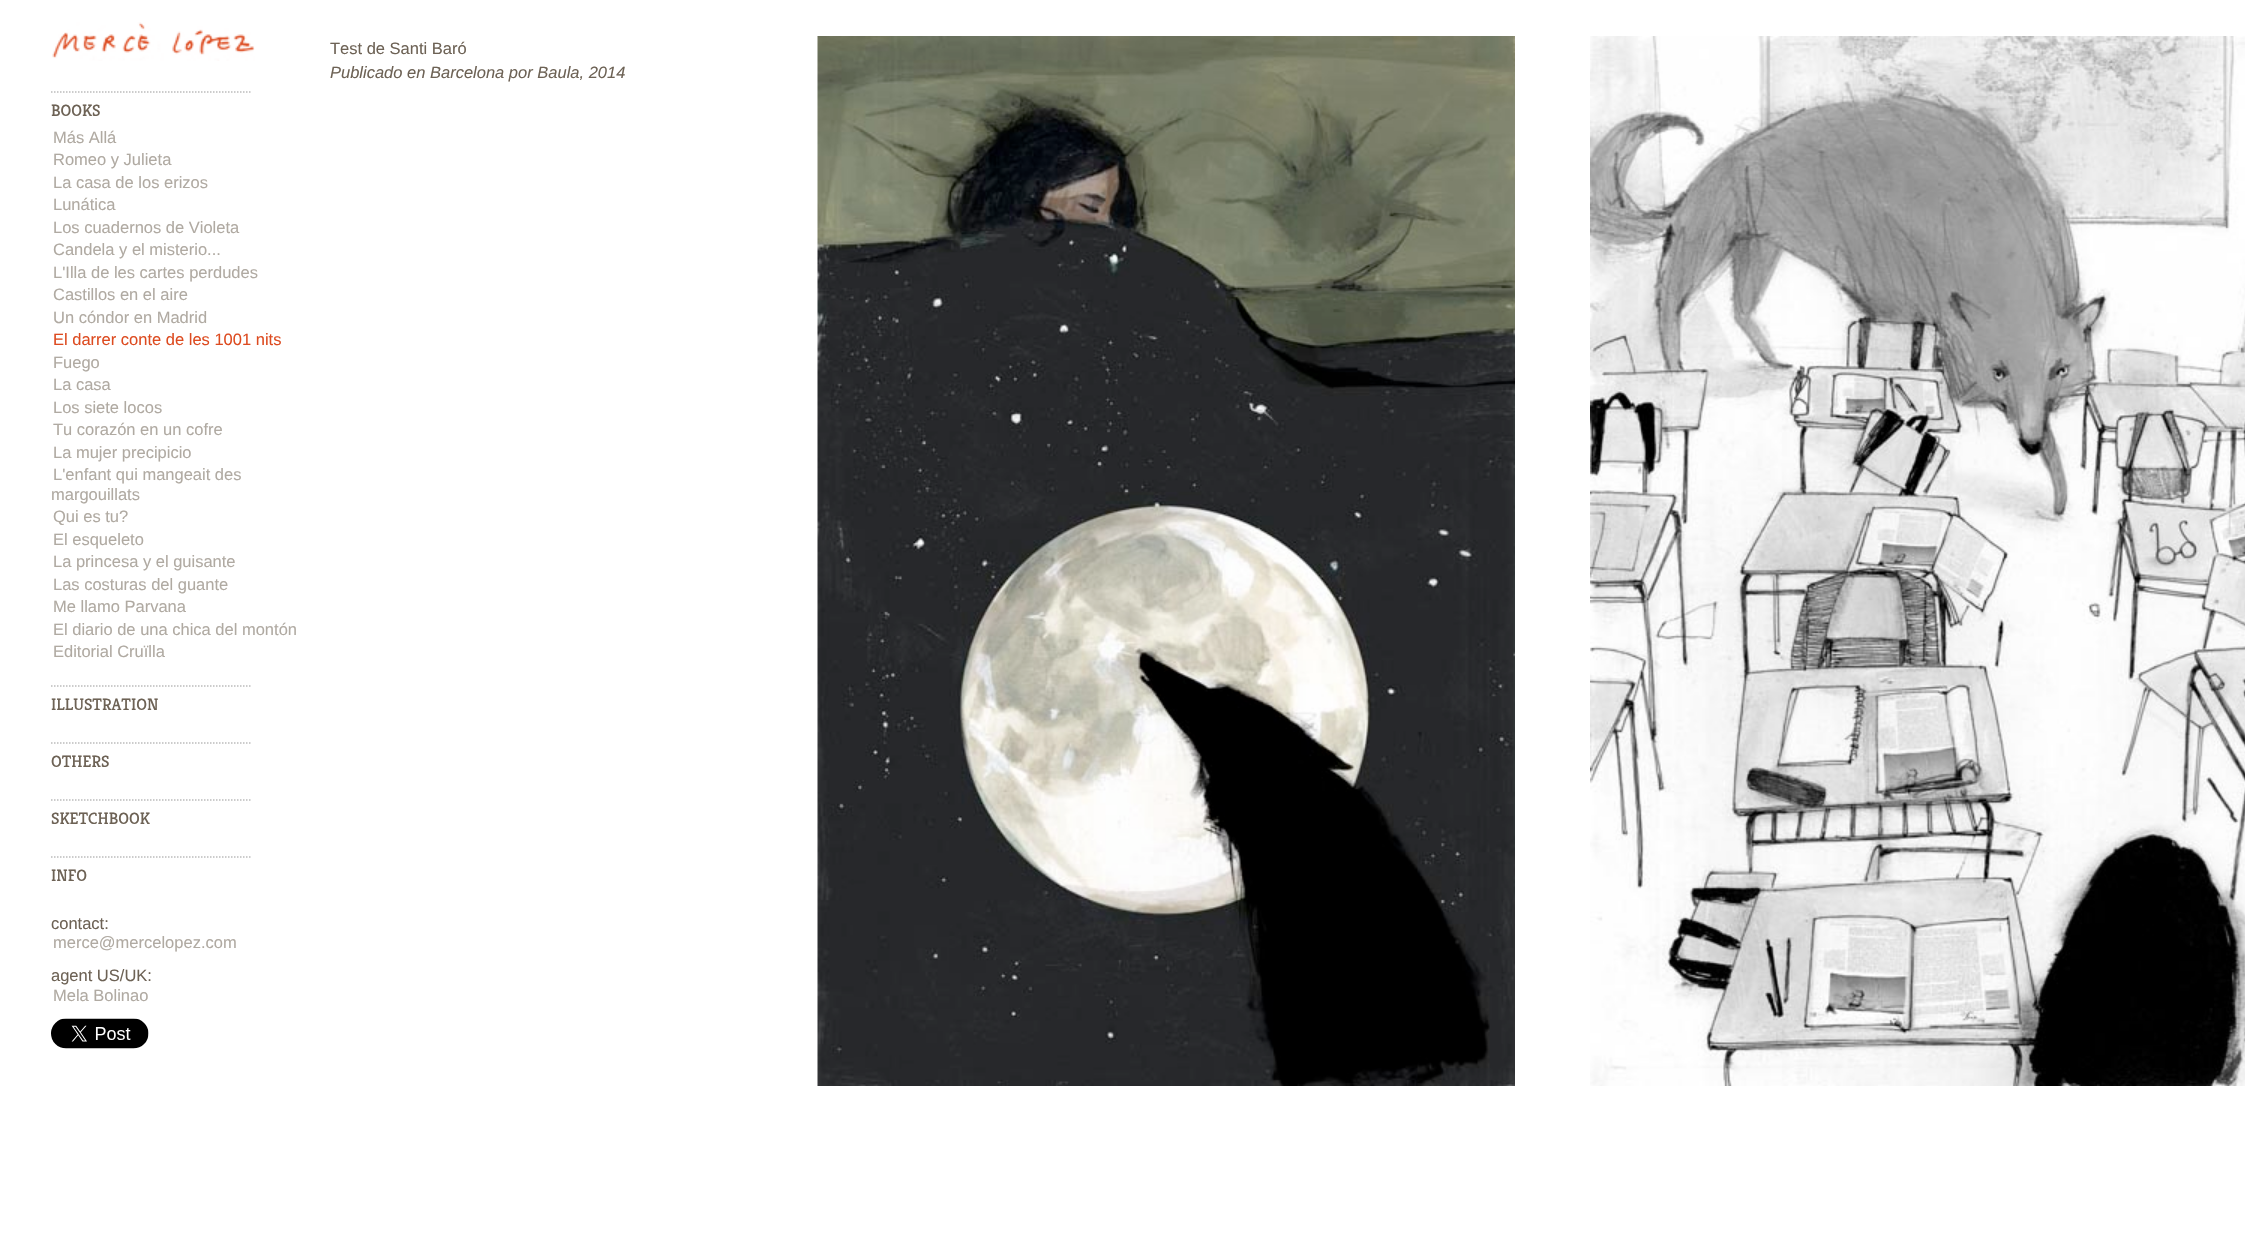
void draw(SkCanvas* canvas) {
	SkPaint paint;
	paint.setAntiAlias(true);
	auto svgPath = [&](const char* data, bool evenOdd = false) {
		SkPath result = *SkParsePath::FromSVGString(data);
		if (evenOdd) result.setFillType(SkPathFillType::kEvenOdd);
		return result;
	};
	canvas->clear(0xffffffff);
	SkFont f1(fontMgr->matchFamilyStyle("Liberation Sans", SkFontStyle::Normal()), 16.5);
	f1.setSubpixel(true);
	paint.setColor(0xff6d6255);
	canvas->drawString("Test de Santi Baró", 330, 54, f1, paint);
	SkFont f2(fontMgr->matchFamilyStyle("Liberation Sans", SkFontStyle::Italic()), 16.5);
	f2.setSubpixel(true);
	canvas->drawString("Publicado en Barcelona por Baula, 2014", 330, 78, f2, paint);
	canvas->drawImageRect(SkImages::DeferredFromEncodedData(SkData::MakeFromFileName("img1.png")), SkRect::MakeXYWH(817, 36, 698, 1050), SkSamplingOptions());
	canvas->drawImageRect(SkImages::DeferredFromEncodedData(SkData::MakeFromFileName("img2.png")), SkRect::MakeXYWH(1590, 36, 655, 1050), SkSamplingOptions());
	canvas->drawImageRect(SkImages::DeferredFromEncodedData(SkData::MakeFromFileName("img3.png")), SkRect::MakeXYWH(52, 22, 203, 39), SkSamplingOptions());
	paint.setStroke(true);
	paint.setStrokeWidth(1.5);
	paint.setColor(0xffbbbbbb);
	paint.setPathEffect(SkDashPathEffect::Make({{1.5f, 1.5f}}, 0));
	canvas->drawPath(svgPath("M51 92H250.5"), paint);
	paint.setPathEffect(nullptr);
	SkFont f3(fontMgr->matchFamilyStyle("Kreon", SkFontStyle::Normal()), 16.5);
	f3.setSubpixel(true);
	paint.setStroke(false);
	paint.setColor(0xff6d6255);
	canvas->drawString("BOOKS", 51, 116, f3, paint);
	paint.setColor(0xffb0aaa2);
	canvas->drawString("Más Allá", 53, 143, f1, paint);
	canvas->drawString("Romeo y Julieta", 53, 165, f1, paint);
	canvas->drawString("La casa de los erizos", 53, 188, f1, paint);
	canvas->drawString("Lunática", 53, 210, f1, paint);
	canvas->drawString("Los cuadernos de Violeta", 53, 233, f1, paint);
	canvas->drawString("Candela y el misterio...", 53, 255, f1, paint);
	canvas->drawString("L'Illa de les cartes perdudes", 53, 278, f1, paint);
	canvas->drawString("Castillos en el aire", 53, 300, f1, paint);
	canvas->drawString("Un cóndor en Madrid", 53, 323, f1, paint);
	paint.setColor(0xffdd4b20);
	canvas->drawString("El darrer conte de les 1001 nits", 53, 345, f1, paint);
	paint.setColor(0xffb0aaa2);
	canvas->drawString("Fuego", 53, 368, f1, paint);
	canvas->drawString("La casa", 53, 390, f1, paint);
	canvas->drawString("Los siete locos", 53, 413, f1, paint);
	canvas->drawString("Tu corazón en un cofre", 53, 435, f1, paint);
	canvas->drawString("La mujer precipicio", 53, 458, f1, paint);
	canvas->drawString("L'enfant qui mangeait des", 53, 480, f1, paint);
	canvas->drawString("margouillats", 51, 500, f1, paint);
	canvas->drawString("Qui es tu?", 53, 522, f1, paint);
	canvas->drawString("El esqueleto", 53, 545, f1, paint);
	canvas->drawString("La princesa y el guisante", 53, 567, f1, paint);
	canvas->drawString("Las costuras del guante", 53, 590, f1, paint);
	canvas->drawString("Me llamo Parvana", 53, 612, f1, paint);
	canvas->drawString("El diario de una chica del montón", 53, 635, f1, paint);
	canvas->drawString("Editorial Cruïlla", 53, 657, f1, paint);
	paint.setStroke(true);
	paint.setColor(0xffbbbbbb);
	paint.setPathEffect(SkDashPathEffect::Make({{1.5f, 1.5f}}, 0));
	canvas->drawPath(svgPath("M51 686H250.5"), paint);
	paint.setPathEffect(nullptr);
	paint.setStroke(false);
	paint.setColor(0xff6d6255);
	canvas->drawString("ILLUSTRATION", 51, 710, f3, paint);
	paint.setStroke(true);
	paint.setColor(0xffbbbbbb);
	paint.setPathEffect(SkDashPathEffect::Make({{1.5f, 1.5f}}, 0));
	canvas->drawPath(svgPath("M51 743H250.5"), paint);
	paint.setPathEffect(nullptr);
	paint.setStroke(false);
	paint.setColor(0xff6d6255);
	canvas->drawString("OTHERS", 51, 767, f3, paint);
	paint.setStroke(true);
	paint.setColor(0xffbbbbbb);
	paint.setPathEffect(SkDashPathEffect::Make({{1.5f, 1.5f}}, 0));
	canvas->drawPath(svgPath("M51 800H250.5"), paint);
	paint.setPathEffect(nullptr);
	paint.setStroke(false);
	paint.setColor(0xff6d6255);
	canvas->drawString("SKETCHBOOK", 51, 824, f3, paint);
	paint.setStroke(true);
	paint.setColor(0xffbbbbbb);
	paint.setPathEffect(SkDashPathEffect::Make({{1.5f, 1.5f}}, 0));
	canvas->drawPath(svgPath("M51 857H250.5"), paint);
	paint.setPathEffect(nullptr);
	paint.setStroke(false);
	paint.setColor(0xff6d6255);
	canvas->drawString("INFO", 51, 881, f3, paint);
	canvas->drawString("contact:", 51, 929, f1, paint);
	paint.setColor(0xffb0aaa2);
	canvas->drawString("merce@mercelopez.com", 53, 948, f1, paint);
	paint.setColor(0xff6d6255);
	canvas->drawString("agent US/UK:", 51, 981, f1, paint);
	paint.setColor(0xffb0aaa2);
	canvas->drawString("Mela Bolinao", 53, 1001, f1, paint);
	canvas->drawImageRect(SkImages::DeferredFromEncodedData(SkData::MakeFromFileName("img4.png")), SkRect::MakeXYWH(51, 1018, 98, 31), SkSamplingOptions());
}
